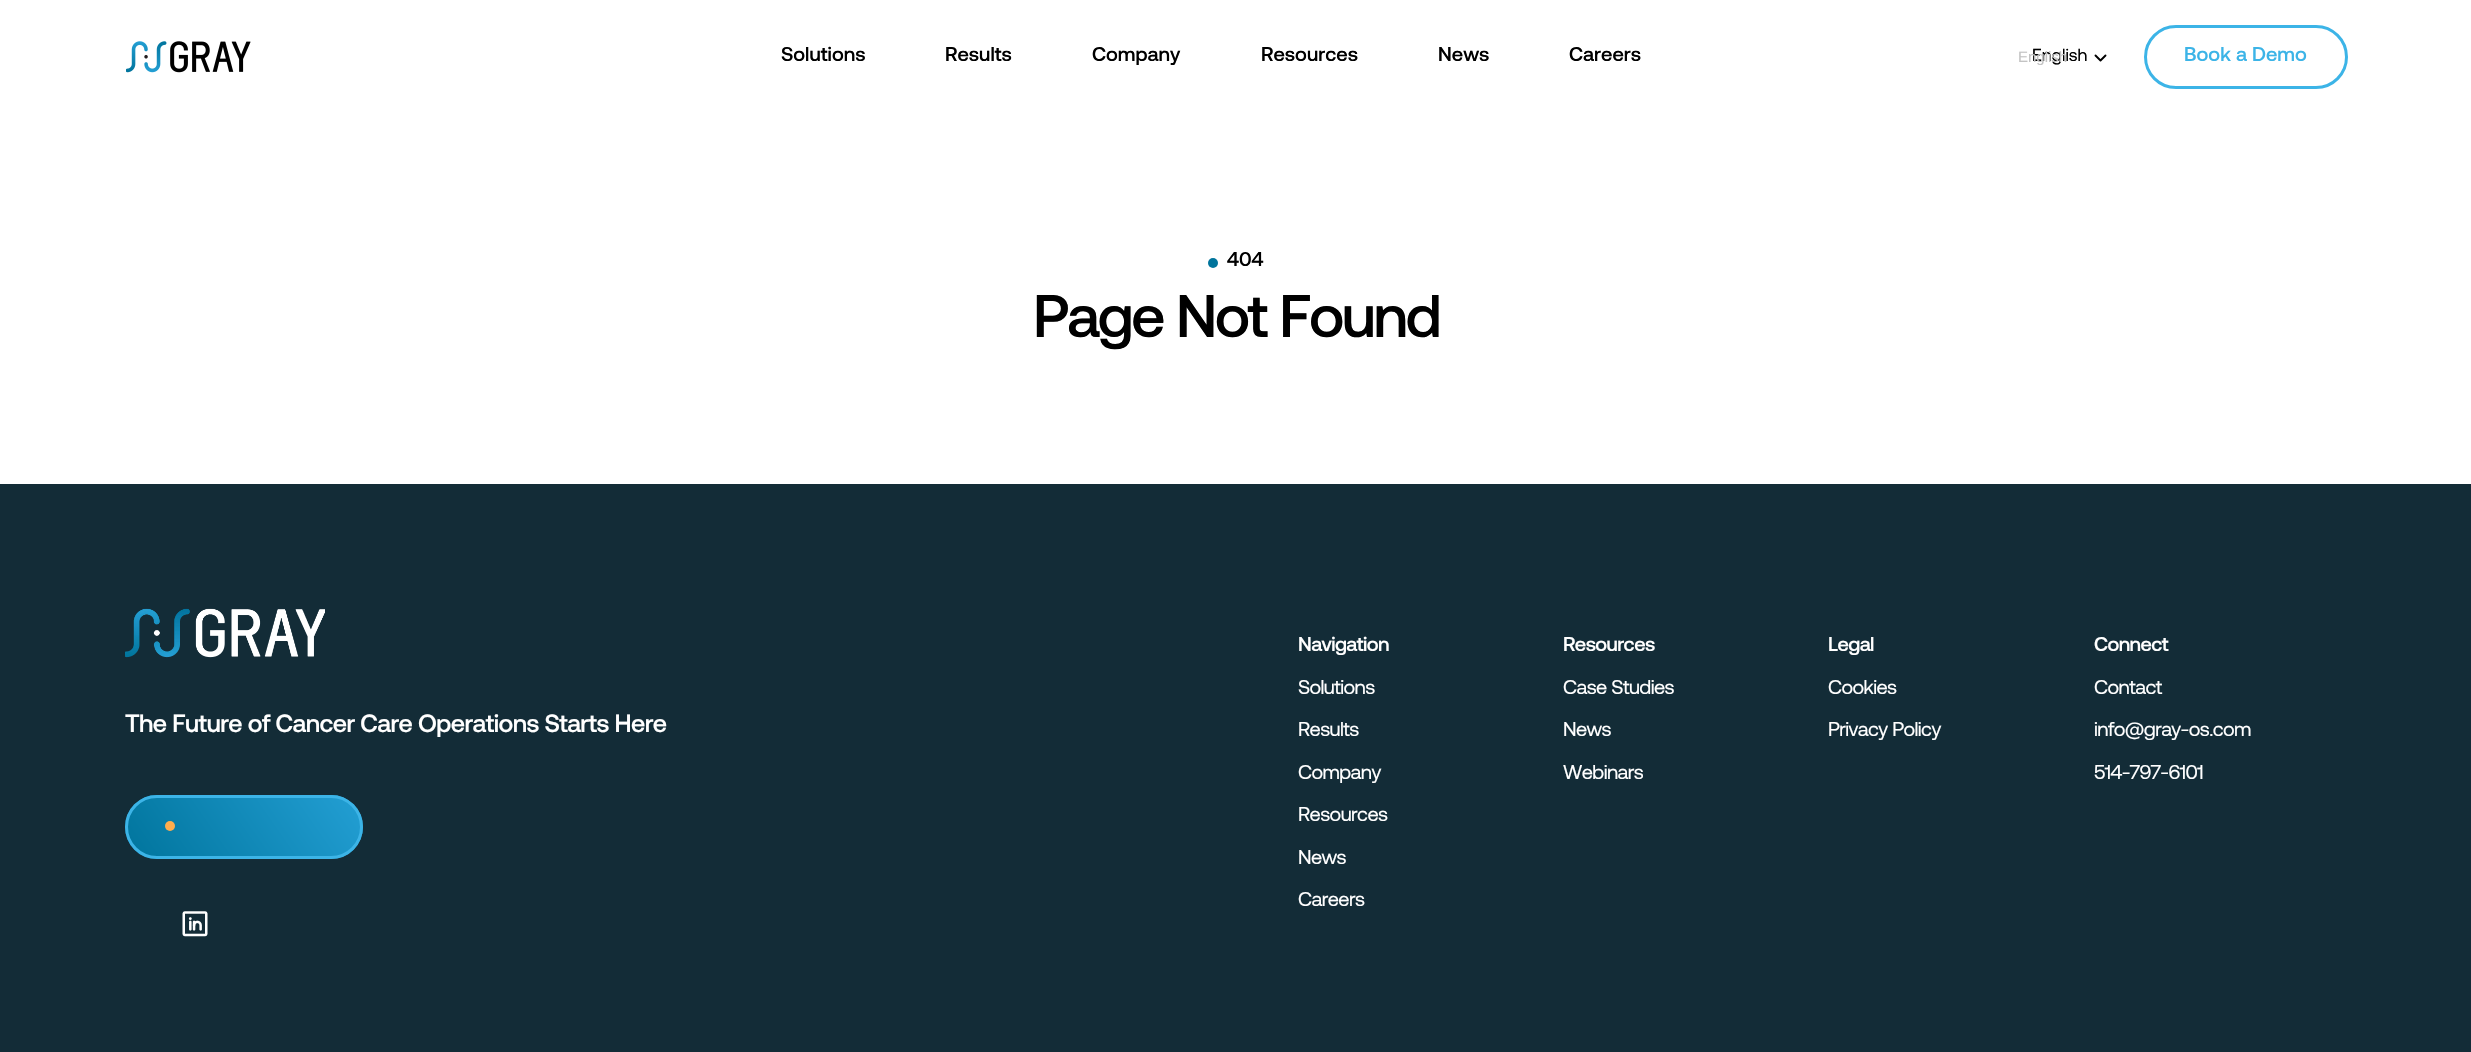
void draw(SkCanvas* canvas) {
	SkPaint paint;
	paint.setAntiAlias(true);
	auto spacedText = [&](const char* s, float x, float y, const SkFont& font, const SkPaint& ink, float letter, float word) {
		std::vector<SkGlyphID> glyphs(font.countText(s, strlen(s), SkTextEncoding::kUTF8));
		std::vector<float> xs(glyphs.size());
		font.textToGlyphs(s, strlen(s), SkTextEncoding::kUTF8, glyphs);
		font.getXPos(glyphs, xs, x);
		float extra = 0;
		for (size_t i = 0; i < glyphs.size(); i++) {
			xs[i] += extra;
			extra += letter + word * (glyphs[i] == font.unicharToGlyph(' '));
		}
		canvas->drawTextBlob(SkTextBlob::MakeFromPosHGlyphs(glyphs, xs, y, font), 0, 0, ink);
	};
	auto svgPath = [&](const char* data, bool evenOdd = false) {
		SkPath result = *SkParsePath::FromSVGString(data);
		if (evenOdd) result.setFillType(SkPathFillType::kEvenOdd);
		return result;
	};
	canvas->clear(0xffffffff);
	canvas->drawImageRect(SkImages::DeferredFromEncodedData(SkData::MakeFromFileName("img1.png")), SkRect::MakeXYWH(126, 41, 125, 32), SkSamplingOptions());
	SkFont f1(fontMgr->matchFamilyStyle("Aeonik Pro", SkFontStyle(500, SkFontStyle::kNormal_Width, SkFontStyle::kUpright_Slant)), 20);
	f1.setSubpixel(true);
	paint.setColor(0xff000000);
	canvas->drawString("Solutions", 781, 61, f1, paint);
	canvas->drawString("Results", 945, 61, f1, paint);
	canvas->drawString("Company", 1092, 61, f1, paint);
	canvas->drawString("Resources", 1261, 61, f1, paint);
	canvas->drawString("News", 1438, 61, f1, paint);
	canvas->drawString("Careers", 1569, 61, f1, paint);
	SkFont f2(fontMgr->matchFamilyStyle("Aeonik Pro", SkFontStyle::Normal()), 17.5);
	f2.setSubpixel(true);
	canvas->drawString("English", 2032, 61, f2, paint);
	paint.setStroke(true);
	paint.setStrokeWidth(1.9);
	paint.setStrokeCap(SkPaint::kRound_Cap);
	paint.setStrokeJoin(SkPaint::kRound_Join);
	canvas->drawPath(svgPath("M2095.5 55.5L2100.5 60.5L2105.5 55.5"), paint);
	SkFont f3(fontMgr->matchFamilyStyle("Liberation Sans", SkFontStyle::Normal()), 15);
	f3.setSubpixel(true);
	paint.setStroke(false);
	paint.setColor(0xffc3c3c3);
	canvas->drawString("English", 2018, 62, f3, paint);
	paint.setStroke(true);
	paint.setStrokeWidth(3);
	paint.setStrokeCap(SkPaint::kButt_Cap);
	paint.setStrokeJoin(SkPaint::kMiter_Join);
	paint.setColor(0xff3cb4e7);
	canvas->drawRoundRect(SkRect::MakeXYWH(2145.5, 26.5, 201, 61), 30.5, 30.5, paint);
	paint.setStroke(false);
	canvas->drawString("Book a Demo", 2184, 61, f1, paint);
	paint.setColor(0xff00749c);
	canvas->drawCircle(1213, 263, 5, paint);
	paint.setColor(0xff000000);
	canvas->drawString("404", 1227, 266, f1, paint);
	SkFont f4(fontMgr->matchFamilyStyle("Aeonik Pro", SkFontStyle(500, SkFontStyle::kNormal_Width, SkFontStyle::kUpright_Slant)), 60);
	f4.setSubpixel(true);
	spacedText("Page Not Found", 1033, 337, f4, paint, -2.4, 0);
	paint.setColor(0xff132c37);
	canvas->drawRect(SkRect::MakeXYWH(0, 484, 2471, 568), paint);
	canvas->drawImageRect(SkImages::DeferredFromEncodedData(SkData::MakeFromFileName("img2.png")), SkRect::MakeXYWH(125, 608, 200, 50), SkSamplingOptions());
	SkFont f5(fontMgr->matchFamilyStyle("Aeonik Pro", SkFontStyle(500, SkFontStyle::kNormal_Width, SkFontStyle::kUpright_Slant)), 25);
	f5.setSubpixel(true);
	paint.setColor(0xffffffff);
	spacedText("The Future of Cancer Care Operations Starts Here", 125, 732, f5, paint, -0.6, 0);
	{
		const SkColor colors[] = {0xff239fd4, 0xff00749c};
		const float stops[] = {0, 1};
		const SkPoint ends[] = {{338, 761}, {149, 893}};
		paint.setShader(SkGradientShader::MakeLinear(ends, colors, stops, 2, SkTileMode::kClamp));
		paint.setAlpha(255);
	}
	canvas->drawRoundRect(SkRect::MakeXYWH(125, 795, 238, 64), 32, 32, paint);
	paint.setShader(nullptr);
	paint.setColor(0xffffad4d);
	canvas->drawCircle(170, 826, 5, paint);
	paint.setStroke(true);
	paint.setColor(0xff3cb4e7);
	canvas->drawRoundRect(SkRect::MakeXYWH(126.5, 796.5, 235, 61), 30.5, 30.5, paint);
	canvas->drawImageRect(SkImages::DeferredFromEncodedData(SkData::MakeFromFileName("img3.png")), SkRect::MakeXYWH(182, 911, 26, 26), SkSamplingOptions());
	paint.setStroke(false);
	paint.setColor(0xffffffff);
	spacedText("Navigation", 1298, 651, f1, paint, -0.6, 0);
	SkFont f6(fontMgr->matchFamilyStyle("Aeonik Pro", SkFontStyle::Normal()), 20);
	f6.setSubpixel(true);
	spacedText("Solutions", 1298, 694, f6, paint, -0.6, 0);
	spacedText("Results", 1298, 736, f6, paint, -0.6, 0);
	spacedText("Company", 1298, 779, f6, paint, -0.6, 0);
	spacedText("Resources", 1298, 821, f6, paint, -0.6, 0);
	spacedText("News", 1298, 864, f6, paint, -0.6, 0);
	spacedText("Careers", 1298, 906, f6, paint, -0.6, 0);
	spacedText("Resources", 1563, 651, f1, paint, -0.6, 0);
	spacedText("Case Studies", 1563, 694, f6, paint, -0.6, 0);
	spacedText("News", 1563, 736, f6, paint, -0.6, 0);
	spacedText("Webinars", 1563, 779, f6, paint, -0.6, 0);
	spacedText("Legal", 1828, 651, f1, paint, -0.6, 0);
	spacedText("Cookies", 1828, 694, f6, paint, -0.6, 0);
	spacedText("Privacy Policy", 1828, 736, f6, paint, -0.6, 0);
	spacedText("Connect", 2094, 651, f1, paint, -0.6, 0);
	spacedText("Contact", 2094, 694, f6, paint, -0.6, 0);
	spacedText("info@gray-os.com", 2094, 736, f6, paint, -0.6, 0);
	spacedText("514-797-6101", 2094, 779, f6, paint, -0.6, 0);
}
